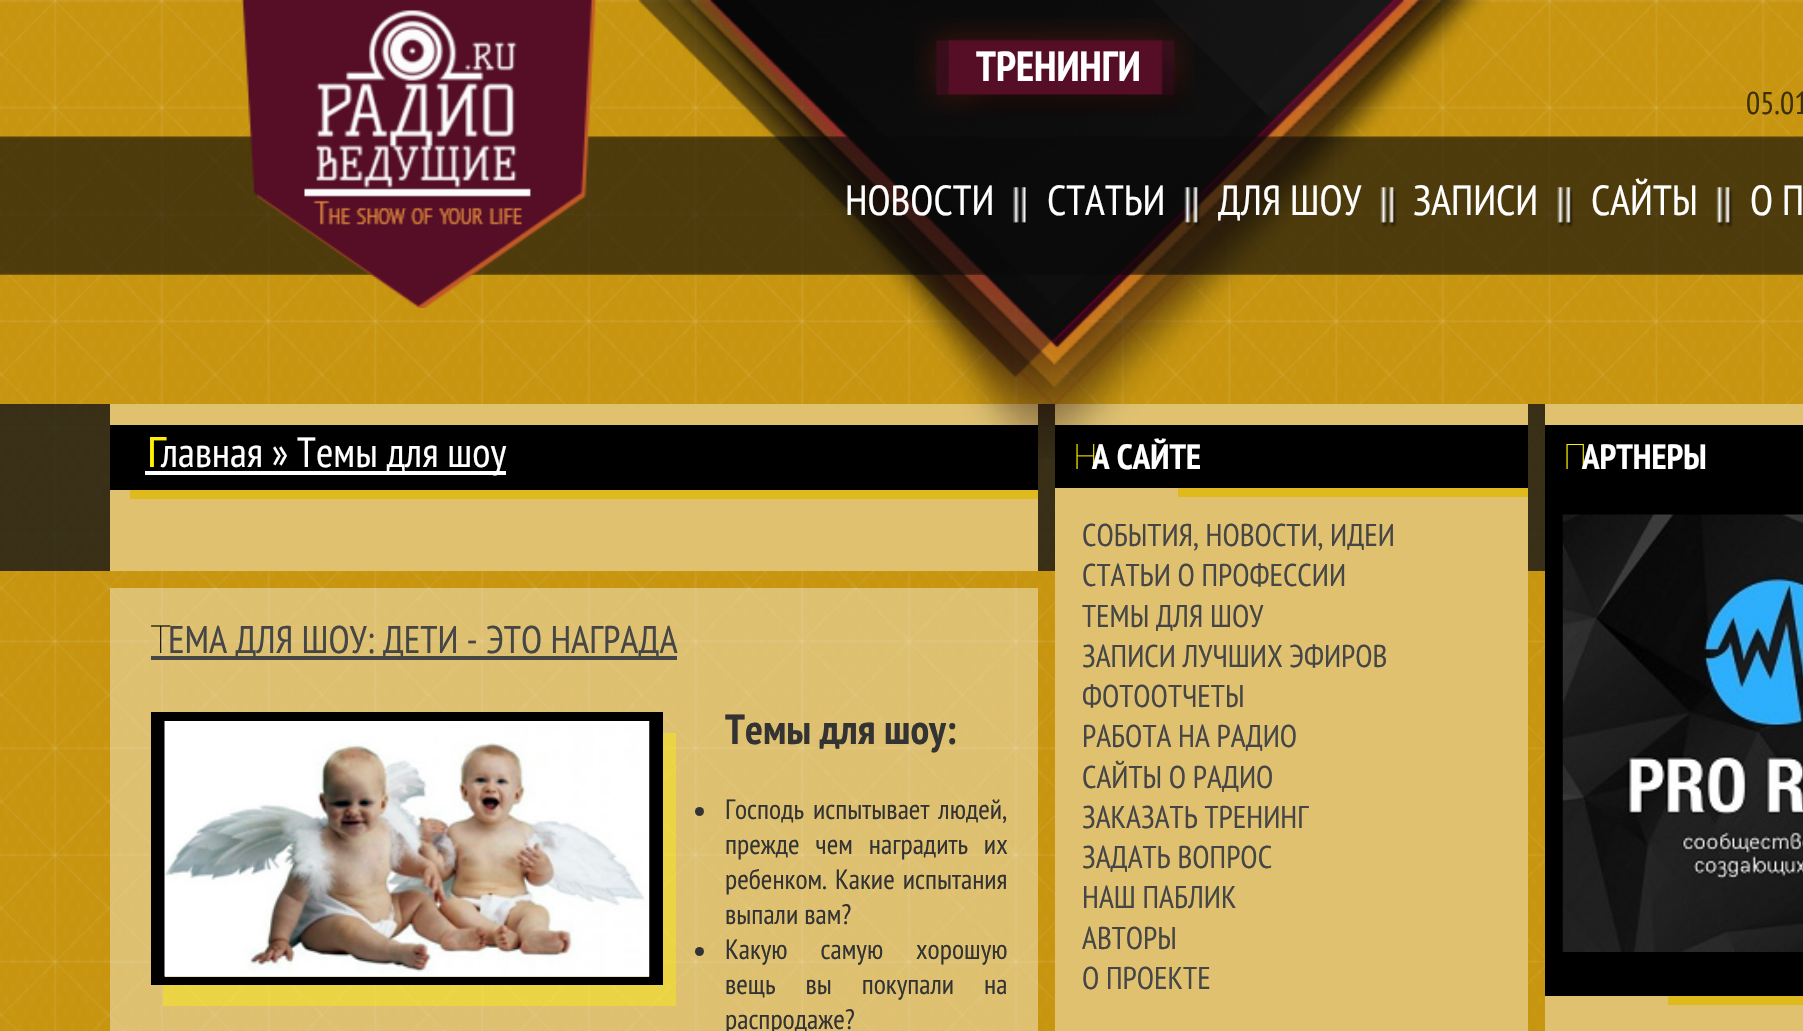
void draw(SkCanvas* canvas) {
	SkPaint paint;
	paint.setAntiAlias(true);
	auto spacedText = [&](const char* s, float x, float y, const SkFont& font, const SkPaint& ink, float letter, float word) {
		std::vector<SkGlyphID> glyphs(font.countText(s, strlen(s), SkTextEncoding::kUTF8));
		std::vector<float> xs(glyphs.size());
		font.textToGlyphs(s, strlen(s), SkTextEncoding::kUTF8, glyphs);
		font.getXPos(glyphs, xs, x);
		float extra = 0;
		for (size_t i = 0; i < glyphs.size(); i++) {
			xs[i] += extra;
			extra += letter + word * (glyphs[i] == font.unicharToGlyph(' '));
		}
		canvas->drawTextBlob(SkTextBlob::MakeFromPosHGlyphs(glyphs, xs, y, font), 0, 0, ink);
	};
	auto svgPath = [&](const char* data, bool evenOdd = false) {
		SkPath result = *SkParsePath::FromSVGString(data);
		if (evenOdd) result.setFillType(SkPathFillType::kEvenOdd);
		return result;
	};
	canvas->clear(0xffffffff);
	canvas->drawImageRect(SkImages::DeferredFromEncodedData(SkData::MakeFromFileName("img1.png")), SkRect::MakeXYWH(0, 0, 1803, 1031), SkSamplingOptions());
	paint.setColor(0xcf171717);
	canvas->drawRect(SkRect::MakeXYWH(0, 404, 1545, 167), paint);
	paint.setColor(0xffdfc170);
	canvas->drawRect(SkRect::MakeXYWH(110, 404, 928, 167), paint);
	paint.setColor(0xff000000);
	canvas->drawRect(SkRect::MakeXYWH(110, 425, 928, 65), paint);
	paint.setColor(0xffdfc170);
	canvas->drawRect(SkRect::MakeXYWH(1055, 404, 473, 627), paint);
	paint.setColor(0xff000000);
	canvas->drawRect(SkRect::MakeXYWH(1055, 425, 473, 63), paint);
	SkFont f1(fontMgr->matchFamilyStyle("Noto Sans", SkFontStyle(100, SkFontStyle::kNormal_Width, SkFontStyle::kUpright_Slant)), 35);
	f1.setSubpixel(true);
	paint.setColor(0xfffff200);
	canvas->drawString("Н", 1073, 469, f1, paint);
	SkFont f2(fontMgr->matchFamilyStyle("PT Sans Narrow", SkFontStyle::Bold()), 35);
	f2.setSubpixel(true);
	paint.setColor(0xffffffff);
	canvas->drawString("А САЙТЕ", 1092, 469, f2, paint);
	canvas->drawImageRect(SkImages::DeferredFromEncodedData(SkData::MakeFromFileName("img2.png")), SkRect::MakeXYWH(638, 0, 852, 459), SkSamplingOptions());
	canvas->drawImageRect(SkImages::DeferredFromEncodedData(SkData::MakeFromFileName("img3.png")), SkRect::MakeXYWH(914, 18, 281, 97), SkSamplingOptions());
	SkFont f3(fontMgr->matchFamilyStyle("PT Sans Narrow", SkFontStyle::Bold()), 42);
	f3.setSubpixel(true);
	canvas->drawString("ТРЕНИНГИ", 976, 81, f3, paint);
	canvas->drawImageRect(SkImages::DeferredFromEncodedData(SkData::MakeFromFileName("img5.png")), SkRect::MakeXYWH(0, 136, 1803, 139), SkSamplingOptions());
	canvas->drawImageRect(SkImages::DeferredFromEncodedData(SkData::MakeFromFileName("img4.png")), SkRect::MakeXYWH(241, 0, 356, 308), SkSamplingOptions());
	SkFont f4(fontMgr->matchFamilyStyle("PT Sans Narrow", SkFontStyle::Normal()), 31.5);
	f4.setSubpixel(true);
	paint.setColor(0xff3d2f07);
	canvas->drawString("05.01", 1746, 114, f4, paint);
	SkFont f5(fontMgr->matchFamilyStyle("PT Sans Narrow", SkFontStyle::Normal()), 42);
	f5.setSubpixel(true);
	paint.setColor(0xffffffff);
	canvas->drawString("НОВОСТИ", 845, 215, f5, paint);
	canvas->drawImageRect(SkImages::DeferredFromEncodedData(SkData::MakeFromFileName("img6.png")), SkRect::MakeXYWH(1013, 187, 14, 38), SkSamplingOptions());
	canvas->drawString("СТАТЬИ", 1047, 215, f5, paint);
	canvas->drawImageRect(SkImages::DeferredFromEncodedData(SkData::MakeFromFileName("img7.png")), SkRect::MakeXYWH(1184, 187, 17, 41), SkSamplingOptions());
	canvas->drawString("ДЛЯ ШОУ", 1218, 215, f5, paint);
	canvas->drawImageRect(SkImages::DeferredFromEncodedData(SkData::MakeFromFileName("img8.png")), SkRect::MakeXYWH(1380, 187, 17, 41), SkSamplingOptions());
	canvas->drawString("ЗАПИСИ", 1413, 215, f5, paint);
	canvas->drawImageRect(SkImages::DeferredFromEncodedData(SkData::MakeFromFileName("img9.png")), SkRect::MakeXYWH(1557, 187, 16, 41), SkSamplingOptions());
	canvas->drawString("САЙТЫ", 1591, 215, f5, paint);
	canvas->drawImageRect(SkImages::DeferredFromEncodedData(SkData::MakeFromFileName("img10.png")), SkRect::MakeXYWH(1716, 187, 17, 41), SkSamplingOptions());
	canvas->drawString("О П", 1750, 215, f5, paint);
	SkFont f6(fontMgr->matchFamilyStyle("Noto Sans", SkFontStyle::Normal()), 42);
	f6.setSubpixel(true);
	paint.setColor(0xfffff200);
	canvas->drawString("Г", 146, 467, f6, paint);
	paint.setColor(0xffffffff);
	canvas->drawRect(SkRect::MakeXYWH(145, 471, 361, 4), paint);
	canvas->drawString("лавная » Темы для шоу", 161, 467, f5, paint);
	paint.setColor(0xffdfba1c);
	canvas->drawRect(SkRect::MakeXYWH(130, 490, 908, 9), paint);
	paint.setColor(0x66ffffff);
	canvas->drawRect(SkRect::MakeXYWH(110, 588, 928, 443), paint);
	SkFont f7(fontMgr->matchFamilyStyle("Noto Sans", SkFontStyle(100, SkFontStyle::kNormal_Width, SkFontStyle::kUpright_Slant)), 38.5);
	f7.setSubpixel(true);
	paint.setColor(0xff040404);
	canvas->drawString("Т", 151, 653, f7, paint);
	paint.setColor(0xff464646);
	canvas->drawRect(SkRect::MakeXYWH(151, 656, 526, 4), paint);
	SkFont f8(fontMgr->matchFamilyStyle("PT Sans Narrow", SkFontStyle::Normal()), 38.5);
	f8.setSubpixel(true);
	canvas->drawString("ЕМА ДЛЯ ШОУ: ДЕТИ - ЭТО НАГРАДА", 168, 653, f8, paint);
	paint.setColor(0x66fff200);
	canvas->drawPath(svgPath("M163 985V1006H676V733H663V985Z"), paint);
	paint.setColor(0xff000000);
	canvas->drawRect(SkRect::MakeXYWH(165, 712, 484, 9), paint);
	canvas->drawRect(SkRect::MakeXYWH(649, 712, 14, 265), paint);
	canvas->drawRect(SkRect::MakeXYWH(165, 977, 498, 8), paint);
	canvas->drawRect(SkRect::MakeXYWH(151, 712, 14, 273), paint);
	canvas->drawImageRect(SkImages::DeferredFromEncodedData(SkData::MakeFromFileName("img11.png")), SkRect::MakeXYWH(164, 721, 486, 256), SkSamplingOptions());
	paint.setColor(0xff333333);
	canvas->drawString("Темы для шоу:", 725, 744, f3, paint);
	canvas->drawCircle(699.5, 811.5, 4.5, paint);
	SkFont f9(fontMgr->matchFamilyStyle("PT Sans Narrow", SkFontStyle::Normal()), 28);
	f9.setSubpixel(true);
	spacedText("Господь испытывает людей,", 725, 819, f9, paint, 0, 3);
	spacedText("прежде чем наградить их", 725, 854, f9, paint, 0, 10);
	spacedText("ребенком. Какие испытания", 725, 889, f9, paint, 0, 2);
	canvas->drawString("выпали вам?", 725, 924, f9, paint);
	canvas->drawCircle(699.5, 951.5, 4.5, paint);
	spacedText("Какую самую хорошую", 725, 959, f9, paint, 0, 27);
	spacedText("вещь вы покупали на", 725, 994, f9, paint, 0, 24);
	canvas->drawString("распродаже?", 725, 1029, f9, paint);
	paint.setColor(0xffdfba1c);
	canvas->drawRect(SkRect::MakeXYWH(1178, 488, 350, 9), paint);
	paint.setColor(0xff464646);
	canvas->drawString("СОБЫТИЯ, НОВОСТИ, ИДЕИ", 1082, 546, f4, paint);
	canvas->drawString("СТАТЬИ О ПРОФЕССИИ", 1082, 586, f4, paint);
	canvas->drawString("ТЕМЫ ДЛЯ ШОУ", 1082, 627, f4, paint);
	canvas->drawString("ЗАПИСИ ЛУЧШИХ ЭФИРОВ", 1082, 667, f4, paint);
	canvas->drawString("ФОТООТЧЕТЫ", 1082, 707, f4, paint);
	canvas->drawString("РАБОТА НА РАДИО", 1082, 747, f4, paint);
	canvas->drawString("САЙТЫ О РАДИО", 1082, 788, f4, paint);
	canvas->drawString("ЗАКАЗАТЬ ТРЕНИНГ", 1082, 828, f4, paint);
	canvas->drawString("ЗАДАТЬ ВОПРОС", 1082, 868, f4, paint);
	canvas->drawString("НАШ ПАБЛИК", 1082, 908, f4, paint);
	canvas->drawString("АВТОРЫ", 1082, 949, f4, paint);
	canvas->drawString("О ПРОЕКТЕ", 1082, 989, f4, paint);
	paint.setColor(0xffdfc170);
	canvas->drawRect(SkRect::MakeXYWH(1545, 404, 258, 627), paint);
	paint.setColor(0xff000000);
	canvas->drawRect(SkRect::MakeXYWH(1545, 425, 258, 571), paint);
	paint.setColor(0xfffff200);
	canvas->drawString("П", 1563, 469, f1, paint);
	paint.setColor(0xffffffff);
	canvas->drawString("АРТНЕРЫ", 1582, 469, f2, paint);
	canvas->drawImageRect(SkImages::DeferredFromEncodedData(SkData::MakeFromFileName("img12.png")), SkRect::MakeXYWH(1562, 514, 241, 438), SkSamplingOptions());
	paint.setColor(0xffdfba1c);
	canvas->drawRect(SkRect::MakeXYWH(1668, 996, 135, 9), paint);
}
